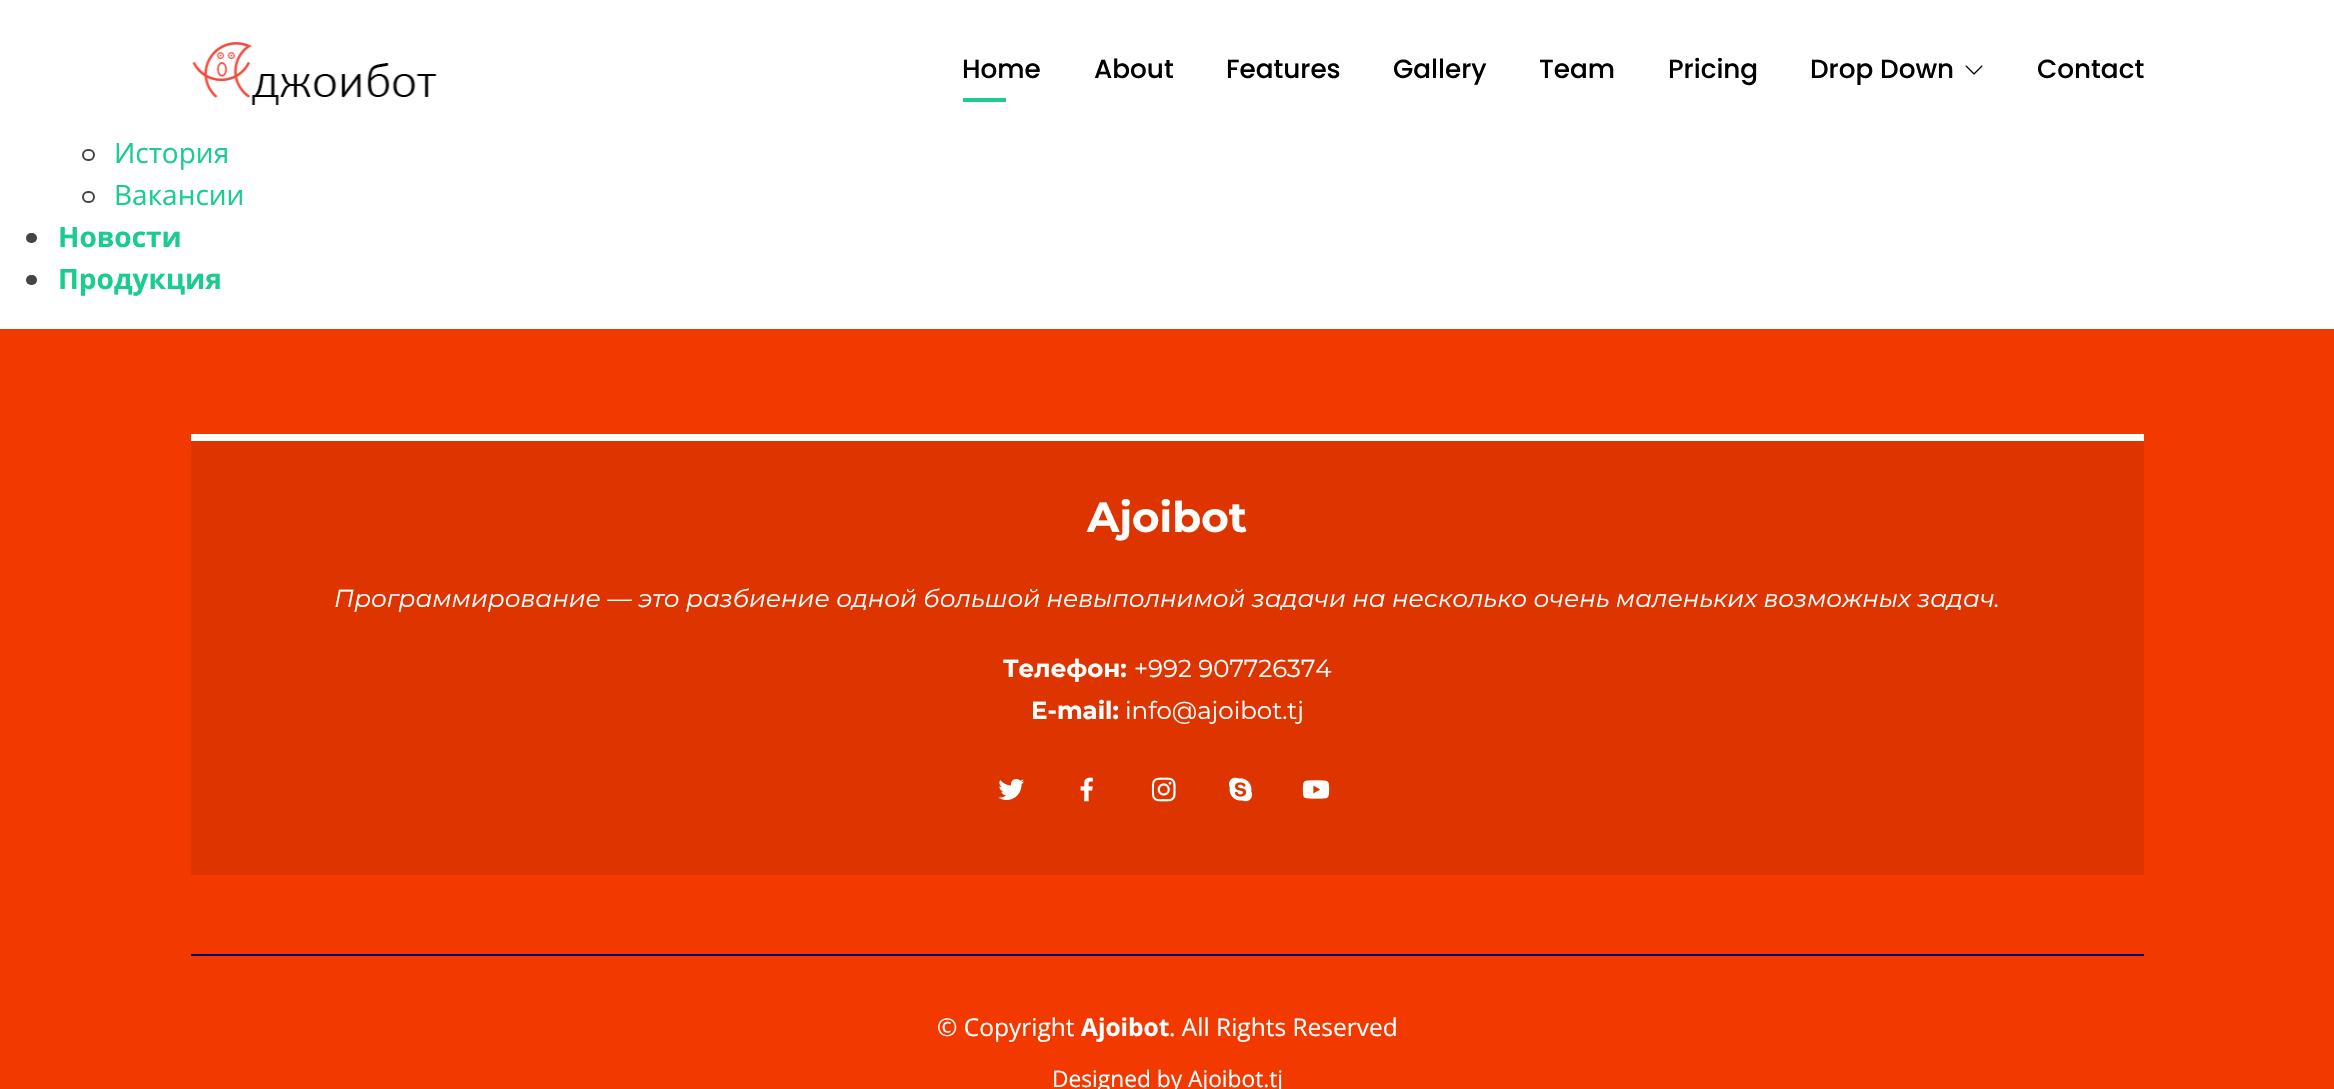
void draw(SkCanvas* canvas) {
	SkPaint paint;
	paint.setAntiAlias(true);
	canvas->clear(0xffffffff);
	canvas->drawImageRect(SkImages::DeferredFromEncodedData(SkData::MakeFromFileName("img1.png")), SkRect::MakeXYWH(192, 42, 245, 63), SkSamplingOptions());
	SkFont f1(fontMgr->matchFamilyStyle("Poppins", SkFontStyle(500, SkFontStyle::kNormal_Width, SkFontStyle::kUpright_Slant)), 26.25);
	f1.setSubpixel(true);
	paint.setColor(0xff000000);
	canvas->drawString("Home", 962, 78, f1, paint);
	paint.setColor(0xff1acc8d);
	canvas->drawRect(SkRect::MakeXYWH(963, 98, 43, 4), paint);
	paint.setColor(0xff000000);
	canvas->drawString("About", 1094, 78, f1, paint);
	canvas->drawString("Features", 1226, 78, f1, paint);
	canvas->drawString("Gallery", 1393, 78, f1, paint);
	canvas->drawString("Team", 1539, 78, f1, paint);
	canvas->drawString("Pricing", 1668, 78, f1, paint);
	canvas->drawString("Drop Down", 1810, 78, f1, paint);
	canvas->drawImageRect(SkImages::DeferredFromEncodedData(SkData::MakeFromFileName("img2.png")), SkRect::MakeXYWH(1965, 65, 18, 10), SkSamplingOptions());
	canvas->drawString("Contact", 2037, 78, f1, paint);
	paint.setStroke(true);
	paint.setStrokeWidth(2);
	paint.setColor(0xff444444);
	canvas->drawRoundRect(SkRect::MakeXYWH(83, 150, 11, 10), 5, 5, paint);
	SkFont f2(fontMgr->matchFamilyStyle("Open Sans", SkFontStyle::Normal()), 28);
	f2.setSubpixel(true);
	paint.setStroke(false);
	paint.setColor(0xff1acc8d);
	canvas->drawString("История", 114, 163, f2, paint);
	paint.setStroke(true);
	paint.setColor(0xff444444);
	canvas->drawRoundRect(SkRect::MakeXYWH(83, 192, 11, 10), 5, 5, paint);
	paint.setStroke(false);
	paint.setColor(0xff1acc8d);
	canvas->drawString("Вакансии", 114, 205, f2, paint);
	paint.setColor(0xff444444);
	canvas->drawRoundRect(SkRect::MakeXYWH(26, 233, 11, 10), 5, 5, paint);
	SkFont f3(fontMgr->matchFamilyStyle("Open Sans", SkFontStyle::Bold()), 28);
	f3.setSubpixel(true);
	paint.setColor(0xff1acc8d);
	canvas->drawString("Новости", 58, 247, f3, paint);
	paint.setColor(0xff444444);
	canvas->drawRoundRect(SkRect::MakeXYWH(26, 275, 11, 10), 5, 5, paint);
	paint.setColor(0xff1acc8d);
	canvas->drawString("Продукция", 58, 289, f3, paint);
	paint.setColor(0xfff13900);
	canvas->drawRect(SkRect::MakeXYWH(0, 329, 2334, 760), paint);
	paint.setColor(0xffde3400);
	canvas->drawRect(SkRect::MakeXYWH(191, 441, 1953, 434), paint);
	paint.setColor(0xffffffff);
	canvas->drawRect(SkRect::MakeXYWH(191, 434, 1953, 7), paint);
	SkFont f4(fontMgr->matchFamilyStyle("Montserrat", SkFontStyle::Bold()), 42);
	f4.setSubpixel(true);
	canvas->drawString("Ajoibot", 1087, 532, f4, paint);
	SkFont f5(fontMgr->matchFamilyStyle("Montserrat", SkFontStyle::Italic()), 24.5);
	f5.setSubpixel(true);
	canvas->drawString("Программирование — это разбиение одной большой невыполнимой задачи на несколько очень маленьких возможных задач.", 334, 607, f5, paint);
	SkFont f6(fontMgr->matchFamilyStyle("Montserrat", SkFontStyle::Bold()), 24.5);
	f6.setSubpixel(true);
	canvas->drawString("Телефон:", 1003, 677, f6, paint);
	SkFont f7(fontMgr->matchFamilyStyle("Montserrat", SkFontStyle::Normal()), 24.5);
	f7.setSubpixel(true);
	canvas->drawString("+992 907726374", 1134, 677, f7, paint);
	canvas->drawString("E-mail:", 1031, 719, f6, paint);
	canvas->drawString("info@ajoibot.tj", 1125, 719, f7, paint);
	canvas->drawImageRect(SkImages::DeferredFromEncodedData(SkData::MakeFromFileName("img3.png")), SkRect::MakeXYWH(998, 779, 26, 21), SkSamplingOptions());
	canvas->drawImageRect(SkImages::DeferredFromEncodedData(SkData::MakeFromFileName("img4.png")), SkRect::MakeXYWH(1080, 777, 13, 25), SkSamplingOptions());
	canvas->drawImageRect(SkImages::DeferredFromEncodedData(SkData::MakeFromFileName("img5.png")), SkRect::MakeXYWH(1151, 777, 25, 25), SkSamplingOptions());
	canvas->drawImageRect(SkImages::DeferredFromEncodedData(SkData::MakeFromFileName("img6.png")), SkRect::MakeXYWH(1228, 777, 25, 25), SkSamplingOptions());
	canvas->drawImageRect(SkImages::DeferredFromEncodedData(SkData::MakeFromFileName("img7.png")), SkRect::MakeXYWH(1302, 780, 28, 19), SkSamplingOptions());
	paint.setColor(0xff010479);
	canvas->drawRect(SkRect::MakeXYWH(191, 954, 1953, 2), paint);
	SkFont f8(fontMgr->matchFamilyStyle("Open Sans", SkFontStyle::Normal()), 24.5);
	f8.setSubpixel(true);
	paint.setColor(0xffffffff);
	canvas->drawString("© Copyright", 937, 1036, f8, paint);
	SkFont f9(fontMgr->matchFamilyStyle("Open Sans", SkFontStyle::Bold()), 24.5);
	f9.setSubpixel(true);
	canvas->drawString("Ajoibot", 1081, 1036, f9, paint);
	canvas->drawString(". All Rights Reserved", 1169, 1036, f8, paint);
	SkFont f10(fontMgr->matchFamilyStyle("Open Sans", SkFontStyle::Normal()), 22.75);
	f10.setSubpixel(true);
	canvas->drawString("Designed by Ajoibot.tj", 1052, 1087, f10, paint);
}
